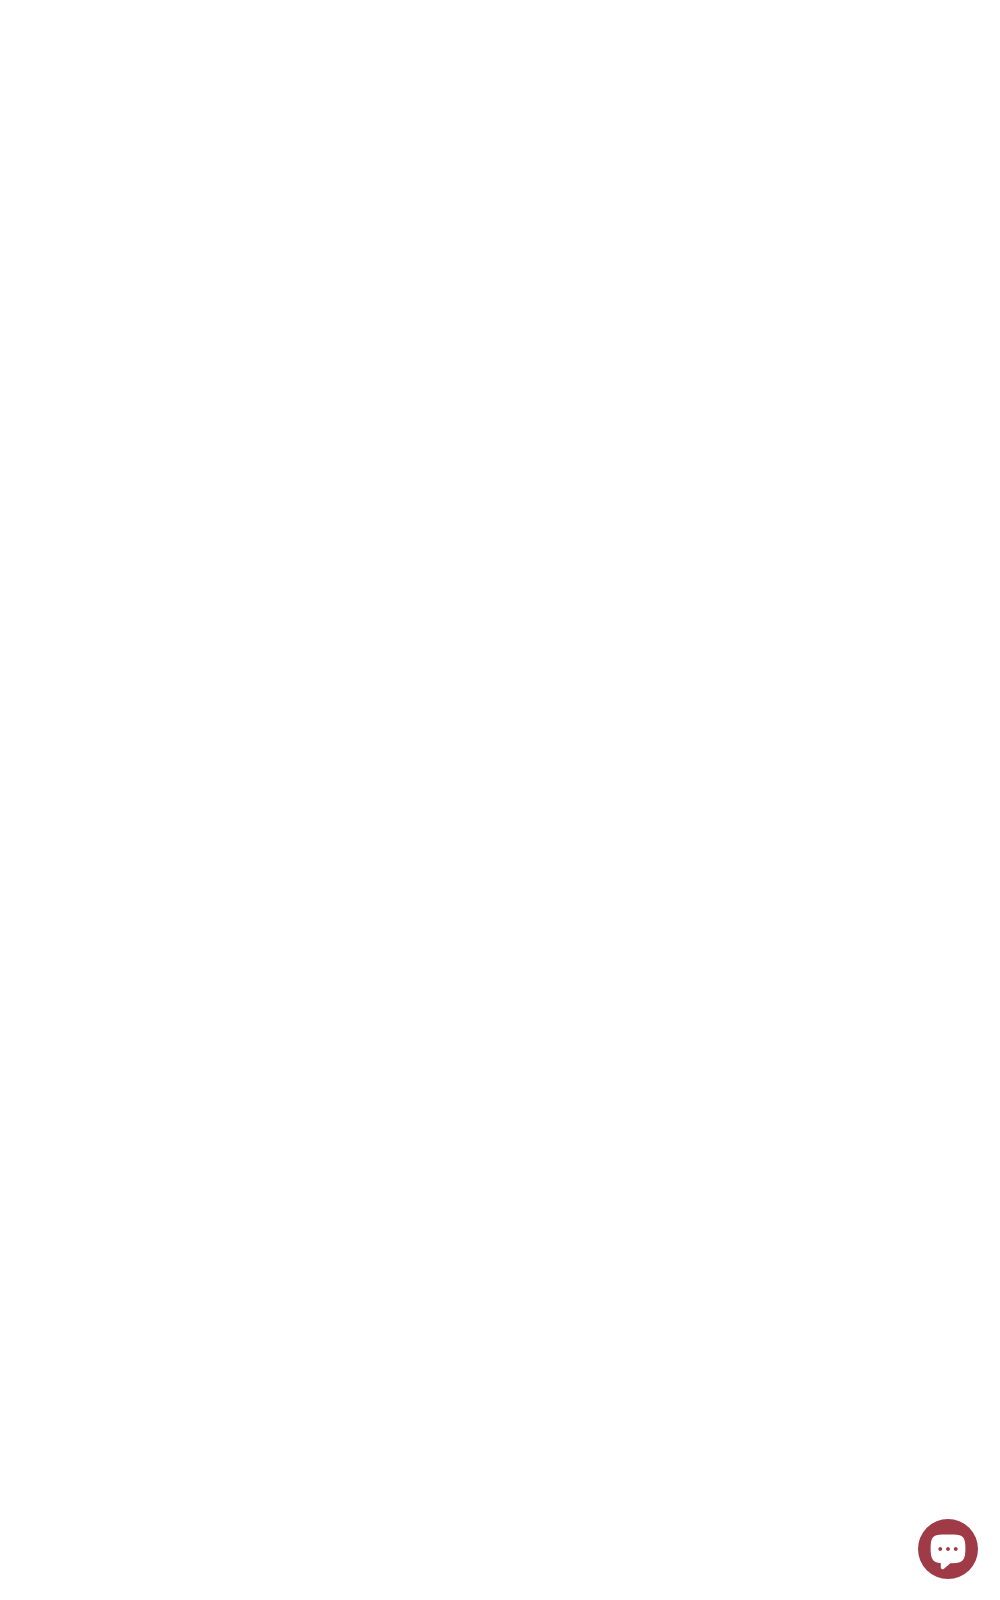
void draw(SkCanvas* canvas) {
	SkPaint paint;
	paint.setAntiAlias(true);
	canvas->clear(0xffffffff);
	paint.setColor(0xff9f3b47);
	canvas->drawCircle(948, 1549, 30, paint);
	canvas->drawImageRect(SkImages::DeferredFromEncodedData(SkData::MakeFromFileName("img1.png")), SkRect::MakeXYWH(930, 1534, 36, 36), SkSamplingOptions());
}
